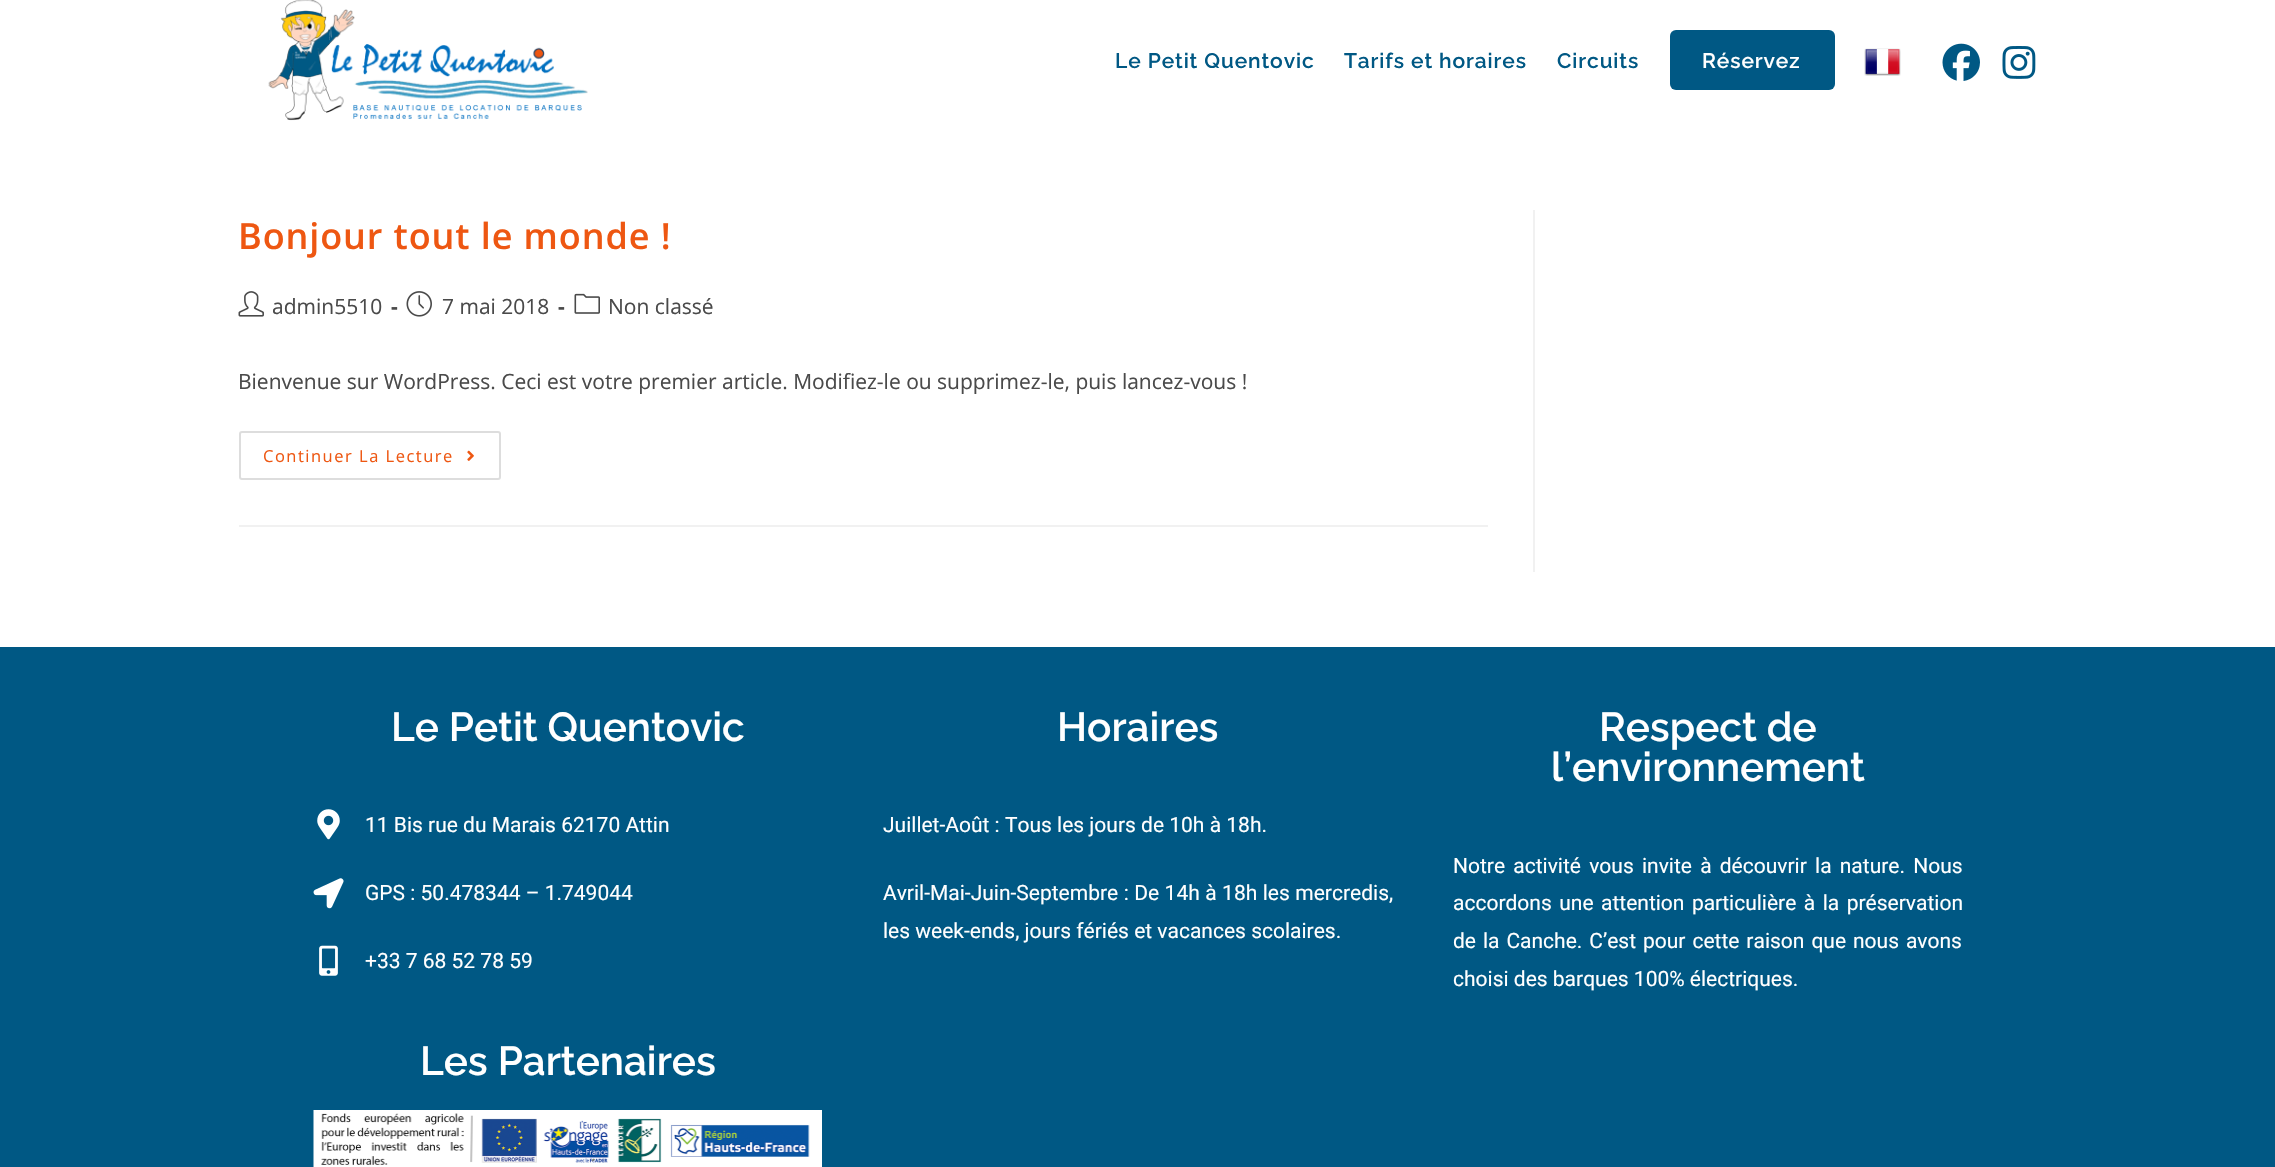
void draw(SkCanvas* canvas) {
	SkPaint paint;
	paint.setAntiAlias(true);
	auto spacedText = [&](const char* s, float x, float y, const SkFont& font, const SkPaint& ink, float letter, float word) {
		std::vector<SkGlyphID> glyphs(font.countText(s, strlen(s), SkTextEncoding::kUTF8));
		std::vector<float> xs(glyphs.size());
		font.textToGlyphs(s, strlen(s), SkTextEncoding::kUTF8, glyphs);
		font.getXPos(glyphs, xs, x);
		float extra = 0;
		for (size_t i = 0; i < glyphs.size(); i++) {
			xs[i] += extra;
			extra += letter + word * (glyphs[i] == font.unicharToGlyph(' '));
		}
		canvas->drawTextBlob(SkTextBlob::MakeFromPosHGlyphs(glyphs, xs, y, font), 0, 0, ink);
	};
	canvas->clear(0xffffffff);
	canvas->drawImageRect(SkImages::DeferredFromEncodedData(SkData::MakeFromFileName("img1.png")), SkRect::MakeXYWH(268, 0, 320, 121), SkSamplingOptions());
	SkFont f1(fontMgr->matchFamilyStyle("Raleway", SkFontStyle(600, SkFontStyle::kNormal_Width, SkFontStyle::kUpright_Slant)), 21);
	f1.setSubpixel(true);
	paint.setColor(0xff005884);
	spacedText("Le Petit Quentovic", 1115, 68, f1, paint, 0.9, 0);
	spacedText("Tarifs et horaires", 1344, 68, f1, paint, 0.9, 0);
	spacedText("Circuits", 1557, 68, f1, paint, 0.9, 0);
	canvas->drawRoundRect(SkRect::MakeXYWH(1670, 30, 165, 60), 6, 6, paint);
	paint.setColor(0xffffffff);
	spacedText("Réservez", 1702, 68, f1, paint, 0.9, 0);
	canvas->drawImageRect(SkImages::DeferredFromEncodedData(SkData::MakeFromFileName("img2.png")), SkRect::MakeXYWH(1864, 48, 37, 28), SkSamplingOptions());
	canvas->drawImageRect(SkImages::DeferredFromEncodedData(SkData::MakeFromFileName("img3.png")), SkRect::MakeXYWH(1942, 43, 38, 38), SkSamplingOptions());
	canvas->drawImageRect(SkImages::DeferredFromEncodedData(SkData::MakeFromFileName("img4.png")), SkRect::MakeXYWH(2002, 46, 34, 33), SkSamplingOptions());
	paint.setColor(0xfff1f1f1);
	canvas->drawRect(SkRect::MakeXYWH(1533, 210, 2, 362), paint);
	canvas->drawRect(SkRect::MakeXYWH(239, 525, 1249, 2), paint);
	SkFont f2(fontMgr->matchFamilyStyle("Open Sans", SkFontStyle(600, SkFontStyle::kNormal_Width, SkFontStyle::kUpright_Slant)), 36);
	f2.setSubpixel(true);
	paint.setColor(0xffee5712);
	spacedText("Bonjour tout le monde !", 238, 249, f2, paint, 0.9, 0);
	canvas->drawImageRect(SkImages::DeferredFromEncodedData(SkData::MakeFromFileName("img5.png")), SkRect::MakeXYWH(238, 291, 26, 26), SkSamplingOptions());
	SkFont f3(fontMgr->matchFamilyStyle("Open Sans", SkFontStyle::Normal()), 21);
	f3.setSubpixel(true);
	paint.setColor(0xff4a4a4a);
	canvas->drawString("admin5510", 272, 314, f3, paint);
	SkFont f4(fontMgr->matchFamilyStyle("Open Sans", SkFontStyle::Bold()), 21);
	f4.setSubpixel(true);
	canvas->drawString("-", 391, 314, f4, paint);
	canvas->drawImageRect(SkImages::DeferredFromEncodedData(SkData::MakeFromFileName("img6.png")), SkRect::MakeXYWH(406, 291, 26, 26), SkSamplingOptions());
	canvas->drawString("7 mai 2018", 442, 314, f3, paint);
	canvas->drawString("-", 558, 314, f4, paint);
	canvas->drawImageRect(SkImages::DeferredFromEncodedData(SkData::MakeFromFileName("img7.png")), SkRect::MakeXYWH(574, 293, 26, 21), SkSamplingOptions());
	canvas->drawString("Non classé", 608, 314, f3, paint);
	canvas->drawString("Bienvenue sur WordPress. Ceci est votre premier article. Modifiez-le ou supprimez-le, puis lancez-vous !", 238, 389, f3, paint);
	paint.setStroke(true);
	paint.setStrokeWidth(2);
	paint.setColor(0xffdddddd);
	canvas->drawRoundRect(SkRect::MakeXYWH(240, 432, 260, 47), 2, 2, paint);
	SkFont f5(fontMgr->matchFamilyStyle("Open Sans", SkFontStyle::Normal()), 16.5);
	f5.setSubpixel(true);
	paint.setStroke(false);
	paint.setColor(0xffee5712);
	spacedText("Continuer La Lecture", 263, 462, f5, paint, 1.5, 0);
	canvas->drawImageRect(SkImages::DeferredFromEncodedData(SkData::MakeFromFileName("img8.png")), SkRect::MakeXYWH(467, 450, 7, 11), SkSamplingOptions());
	paint.setColor(0xff005884);
	canvas->drawRect(SkRect::MakeXYWH(0, 647, 2275, 520), paint);
	SkFont f6(fontMgr->matchFamilyStyle("Raleway", SkFontStyle(600, SkFontStyle::kNormal_Width, SkFontStyle::kUpright_Slant)), 40.5);
	f6.setSubpixel(true);
	paint.setColor(0xffffffff);
	canvas->drawString("Le Petit Quentovic", 391, 741, f6, paint);
	canvas->drawImageRect(SkImages::DeferredFromEncodedData(SkData::MakeFromFileName("img9.png")), SkRect::MakeXYWH(317, 809, 23, 31), SkSamplingOptions());
	SkFont f7(fontMgr->matchFamilyStyle("Roboto", SkFontStyle::Normal()), 21);
	f7.setSubpixel(true);
	canvas->drawString("11 Bis rue du Marais 62170 Attin", 365, 832, f7, paint);
	canvas->drawImageRect(SkImages::DeferredFromEncodedData(SkData::MakeFromFileName("img10.png")), SkRect::MakeXYWH(313, 878, 31, 31), SkSamplingOptions());
	canvas->drawString("GPS : 50.478344 – 1.749044", 365, 900, f7, paint);
	canvas->drawImageRect(SkImages::DeferredFromEncodedData(SkData::MakeFromFileName("img11.png")), SkRect::MakeXYWH(319, 945, 19, 31), SkSamplingOptions());
	canvas->drawString("+33 7 68 52 78 59", 365, 968, f7, paint);
	canvas->drawString("Les Partenaires", 420, 1075, f6, paint);
	canvas->drawImageRect(SkImages::DeferredFromEncodedData(SkData::MakeFromFileName("img12.png")), SkRect::MakeXYWH(313, 1110, 509, 57), SkSamplingOptions());
	canvas->drawString("Horaires", 1057, 741, f6, paint);
	canvas->drawString("Juillet-Août : Tous les jours de 10h à 18h.", 883, 832, f7, paint);
	spacedText("Avril-Mai-Juin-Septembre : De 14h à 18h les mercredis,", 883, 900, f7, paint, 0, 0.25);
	canvas->drawString("les week-ends, jours fériés et vacances scolaires.", 883, 938, f7, paint);
	canvas->drawString("Respect de", 1599, 741, f6, paint);
	canvas->drawString("l’environnement", 1551, 781, f6, paint);
	spacedText("Notre activité vous invite à découvrir la nature. Nous", 1453, 873, f7, paint, 0, 3);
	spacedText("accordons une attention particulière à la préservation", 1453, 910, f7, paint, 0, 2.25);
	spacedText("de la Canche. C’est pour cette raison que nous avons", 1453, 948, f7, paint, 0, 1.75);
	canvas->drawString("choisi des barques 100% électriques.", 1453, 986, f7, paint);
}
